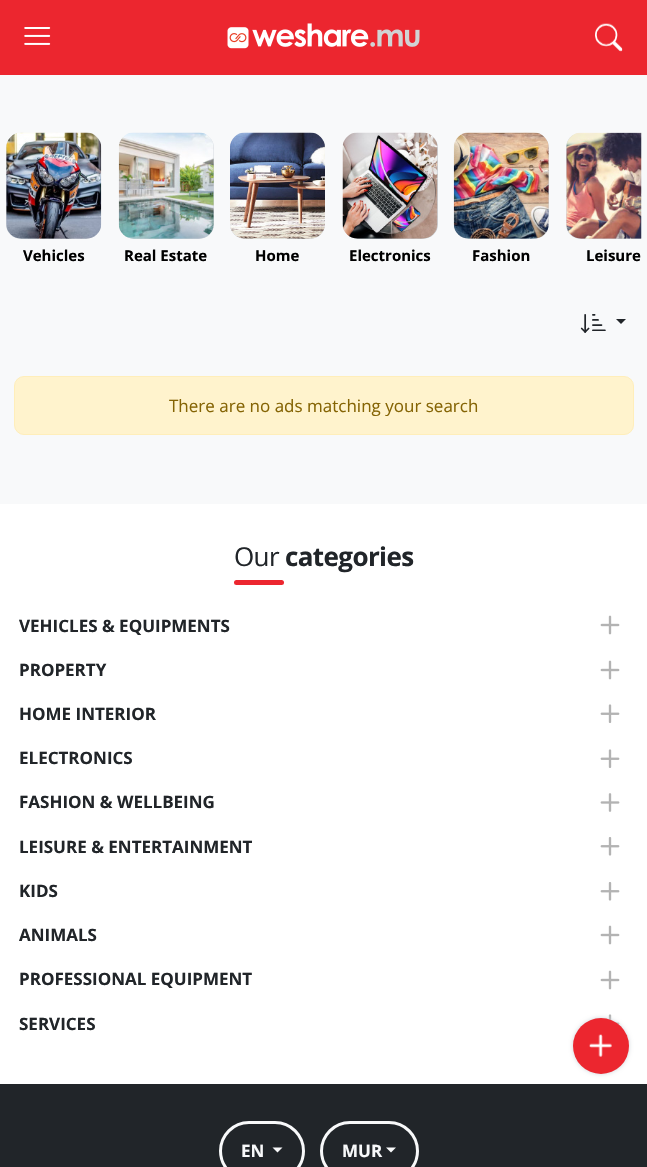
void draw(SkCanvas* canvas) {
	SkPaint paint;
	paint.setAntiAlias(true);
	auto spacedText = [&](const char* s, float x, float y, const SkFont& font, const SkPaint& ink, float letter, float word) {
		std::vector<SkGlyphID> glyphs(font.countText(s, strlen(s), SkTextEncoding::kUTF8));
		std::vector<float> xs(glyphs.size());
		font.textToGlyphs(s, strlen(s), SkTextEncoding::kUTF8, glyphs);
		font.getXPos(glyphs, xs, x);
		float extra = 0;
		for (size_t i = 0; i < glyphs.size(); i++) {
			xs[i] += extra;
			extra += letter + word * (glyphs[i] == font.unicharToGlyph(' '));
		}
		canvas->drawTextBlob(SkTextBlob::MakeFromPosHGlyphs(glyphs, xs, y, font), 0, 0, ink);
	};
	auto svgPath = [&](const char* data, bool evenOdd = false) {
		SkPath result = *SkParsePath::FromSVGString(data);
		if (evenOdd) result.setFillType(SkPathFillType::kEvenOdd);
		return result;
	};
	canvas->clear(0xfff8f9fa);
	paint.setColor(0xffec262f);
	canvas->drawRect(SkRect::MakeXYWH(0, 0, 647, 75), paint);
	canvas->drawImageRect(SkImages::DeferredFromEncodedData(SkData::MakeFromFileName("img1.png")), SkRect::MakeXYWH(24, 27, 27, 18), SkSamplingOptions());
	canvas->drawImageRect(SkImages::DeferredFromEncodedData(SkData::MakeFromFileName("img2.png")), SkRect::MakeXYWH(227, 23, 193, 26), SkSamplingOptions());
	canvas->drawImageRect(SkImages::DeferredFromEncodedData(SkData::MakeFromFileName("img3.png")), SkRect::MakeXYWH(595, 23, 28, 29), SkSamplingOptions());
	paint.setColor(0xffced4da);
	canvas->drawRoundRect(SkRect::MakeXYWH(6, 133, 95, 106), 15, 15, paint);
	canvas->drawImageRect(SkImages::DeferredFromEncodedData(SkData::MakeFromFileName("img4.png")), SkRect::MakeXYWH(6, 132, 96, 107), SkSamplingOptions());
	SkFont f1(fontMgr->matchFamilyStyle("Open Sans", SkFontStyle::Bold()), 15);
	f1.setSubpixel(true);
	paint.setColor(0xff000000);
	canvas->drawString("Vehicles", 23, 261, f1, paint);
	paint.setColor(0xffced4da);
	canvas->drawRoundRect(SkRect::MakeXYWH(119, 133, 95, 106), 15, 15, paint);
	canvas->drawImageRect(SkImages::DeferredFromEncodedData(SkData::MakeFromFileName("img5.png")), SkRect::MakeXYWH(118, 132, 96, 107), SkSamplingOptions());
	paint.setColor(0xff000000);
	canvas->drawString("Real Estate", 124, 261, f1, paint);
	paint.setColor(0xffced4da);
	canvas->drawRoundRect(SkRect::MakeXYWH(230, 133, 95, 106), 15, 15, paint);
	canvas->drawImageRect(SkImages::DeferredFromEncodedData(SkData::MakeFromFileName("img6.png")), SkRect::MakeXYWH(230, 132, 95, 107), SkSamplingOptions());
	paint.setColor(0xff000000);
	canvas->drawString("Home", 255, 261, f1, paint);
	paint.setColor(0xffced4da);
	canvas->drawRoundRect(SkRect::MakeXYWH(343, 133, 95, 106), 15, 15, paint);
	canvas->drawImageRect(SkImages::DeferredFromEncodedData(SkData::MakeFromFileName("img7.png")), SkRect::MakeXYWH(342, 132, 96, 107), SkSamplingOptions());
	paint.setColor(0xff000000);
	canvas->drawString("Electronics", 349, 261, f1, paint);
	paint.setColor(0xffced4da);
	canvas->drawRoundRect(SkRect::MakeXYWH(454, 133, 95, 106), 15, 15, paint);
	canvas->drawImageRect(SkImages::DeferredFromEncodedData(SkData::MakeFromFileName("img8.png")), SkRect::MakeXYWH(453, 132, 96, 107), SkSamplingOptions());
	paint.setColor(0xff000000);
	canvas->drawString("Fashion", 472, 261, f1, paint);
	paint.setColor(0xffced4da);
	canvas->drawPath(svgPath("M581 133H641V239H581C572.5 239 566 232.5 566 224V148C566 139.5 572.5 133 581 133Z"), paint);
	canvas->drawImageRect(SkImages::DeferredFromEncodedData(SkData::MakeFromFileName("img9.png")), SkRect::MakeXYWH(566, 132, 76, 107), SkSamplingOptions());
	paint.setColor(0xff000000);
	canvas->drawString("Leisure", 586, 261, f1, paint);
	canvas->drawImageRect(SkImages::DeferredFromEncodedData(SkData::MakeFromFileName("img10.png")), SkRect::MakeXYWH(580, 314, 26, 19), SkSamplingOptions());
	paint.setColor(0xff212529);
	canvas->drawPath(svgPath("M616 319H626L621 324Z"), paint);
	paint.setColor(0xfffff3cd);
	canvas->drawRoundRect(SkRect::MakeXYWH(14.5, 376.5, 619, 58), 9.5, 9.5, paint);
	paint.setStroke(true);
	paint.setStrokeWidth(1);
	paint.setColor(0xffffeeba);
	canvas->drawRoundRect(SkRect::MakeXYWH(14.5, 376.5, 619, 58), 9.5, 9.5, paint);
	SkFont f2(fontMgr->matchFamilyStyle("Open Sans", SkFontStyle::Normal()), 17);
	f2.setSubpixel(true);
	paint.setStroke(false);
	paint.setColor(0xff856404);
	canvas->drawString("There are no ads matching your search", 169, 412, f2, paint);
	paint.setColor(0xffffffff);
	canvas->drawRect(SkRect::MakeXYWH(0, 504, 647, 580), paint);
	canvas->drawImageRect(SkImages::DeferredFromEncodedData(SkData::MakeFromFileName("img16.png")), SkRect::MakeXYWH(608, 1014, 12, 11), SkSamplingOptions());
	paint.setColor(0xffced4da);
	paint.setMaskFilter(SkMaskFilter::MakeBlur(kNormal_SkBlurStyle, 2));
	canvas->drawRoundRect(SkRect::MakeXYWH(573, 1018, 56, 56), 28, 28, paint);
	paint.setMaskFilter(nullptr);
	paint.setColor(0xffec262f);
	canvas->drawCircle(601, 1046, 28, paint);
	canvas->drawImageRect(SkImages::DeferredFromEncodedData(SkData::MakeFromFileName("img11.png")), SkRect::MakeXYWH(589, 1034, 23, 23), SkSamplingOptions());
	SkFont f3(fontMgr->matchFamilyStyle("Open Sans", SkFontStyle::Normal()), 26);
	f3.setSubpixel(true);
	paint.setColor(0xff212529);
	spacedText("Our", 234, 566, f3, paint, -0.6, 0);
	SkFont f4(fontMgr->matchFamilyStyle("Open Sans", SkFontStyle::Bold()), 26);
	f4.setSubpixel(true);
	spacedText("categories", 285, 566, f4, paint, -0.6, 0);
	paint.setColor(0xffec262f);
	canvas->drawRoundRect(SkRect::MakeXYWH(234, 580, 50, 5), 2.5, 2.5, paint);
	SkFont f5(fontMgr->matchFamilyStyle("Open Sans", SkFontStyle::Bold()), 17);
	f5.setSubpixel(true);
	paint.setColor(0xff212529);
	canvas->drawString("VEHICLES & EQUIPMENTS", 19, 632, f5, paint);
	canvas->drawImageRect(SkImages::DeferredFromEncodedData(SkData::MakeFromFileName("img12.png")), SkRect::MakeXYWH(600, 615, 20, 20), SkSamplingOptions());
	canvas->drawString("PROPERTY", 19, 676, f5, paint);
	canvas->drawImageRect(SkImages::DeferredFromEncodedData(SkData::MakeFromFileName("img12.png")), SkRect::MakeXYWH(600, 660, 20, 20), SkSamplingOptions());
	canvas->drawString("HOME INTERIOR", 19, 720, f5, paint);
	canvas->drawImageRect(SkImages::DeferredFromEncodedData(SkData::MakeFromFileName("img13.png")), SkRect::MakeXYWH(600, 704, 20, 19), SkSamplingOptions());
	canvas->drawString("ELECTRONICS", 19, 764, f5, paint);
	canvas->drawImageRect(SkImages::DeferredFromEncodedData(SkData::MakeFromFileName("img13.png")), SkRect::MakeXYWH(600, 749, 20, 19), SkSamplingOptions());
	canvas->drawString("FASHION & WELLBEING", 19, 808, f5, paint);
	canvas->drawImageRect(SkImages::DeferredFromEncodedData(SkData::MakeFromFileName("img14.png")), SkRect::MakeXYWH(600, 793, 20, 19), SkSamplingOptions());
	canvas->drawString("LEISURE & ENTERTAINMENT", 19, 853, f5, paint);
	canvas->drawImageRect(SkImages::DeferredFromEncodedData(SkData::MakeFromFileName("img15.png")), SkRect::MakeXYWH(600, 837, 20, 19), SkSamplingOptions());
	canvas->drawString("KIDS", 19, 897, f5, paint);
	canvas->drawImageRect(SkImages::DeferredFromEncodedData(SkData::MakeFromFileName("img15.png")), SkRect::MakeXYWH(600, 882, 20, 19), SkSamplingOptions());
	canvas->drawString("ANIMALS", 19, 941, f5, paint);
	canvas->drawImageRect(SkImages::DeferredFromEncodedData(SkData::MakeFromFileName("img12.png")), SkRect::MakeXYWH(600, 925, 20, 20), SkSamplingOptions());
	canvas->drawString("PROFESSIONAL EQUIPMENT", 19, 985, f5, paint);
	canvas->drawImageRect(SkImages::DeferredFromEncodedData(SkData::MakeFromFileName("img12.png")), SkRect::MakeXYWH(600, 970, 20, 20), SkSamplingOptions());
	canvas->drawString("SERVICES", 19, 1030, f5, paint);
	canvas->drawRect(SkRect::MakeXYWH(0, 1084, 647, 83), paint);
	paint.setStroke(true);
	paint.setStrokeWidth(3);
	paint.setColor(0xfff8f9fa);
	canvas->drawRoundRect(SkRect::MakeXYWH(220.5, 1122.5, 83, 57), 28.5, 28.5, paint);
	paint.setStroke(false);
	canvas->drawString("EN", 241, 1157, f5, paint);
	canvas->drawPath(svgPath("M272.5 1147.5H282.5L277.5 1152.5Z"), paint);
	paint.setStroke(true);
	canvas->drawRoundRect(SkRect::MakeXYWH(321.5, 1122.5, 96, 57), 28.5, 28.5, paint);
	paint.setStroke(false);
	canvas->drawString("MUR", 342, 1157, f5, paint);
	canvas->drawPath(svgPath("M386 1147.5H396L391 1152.5Z"), paint);
}
